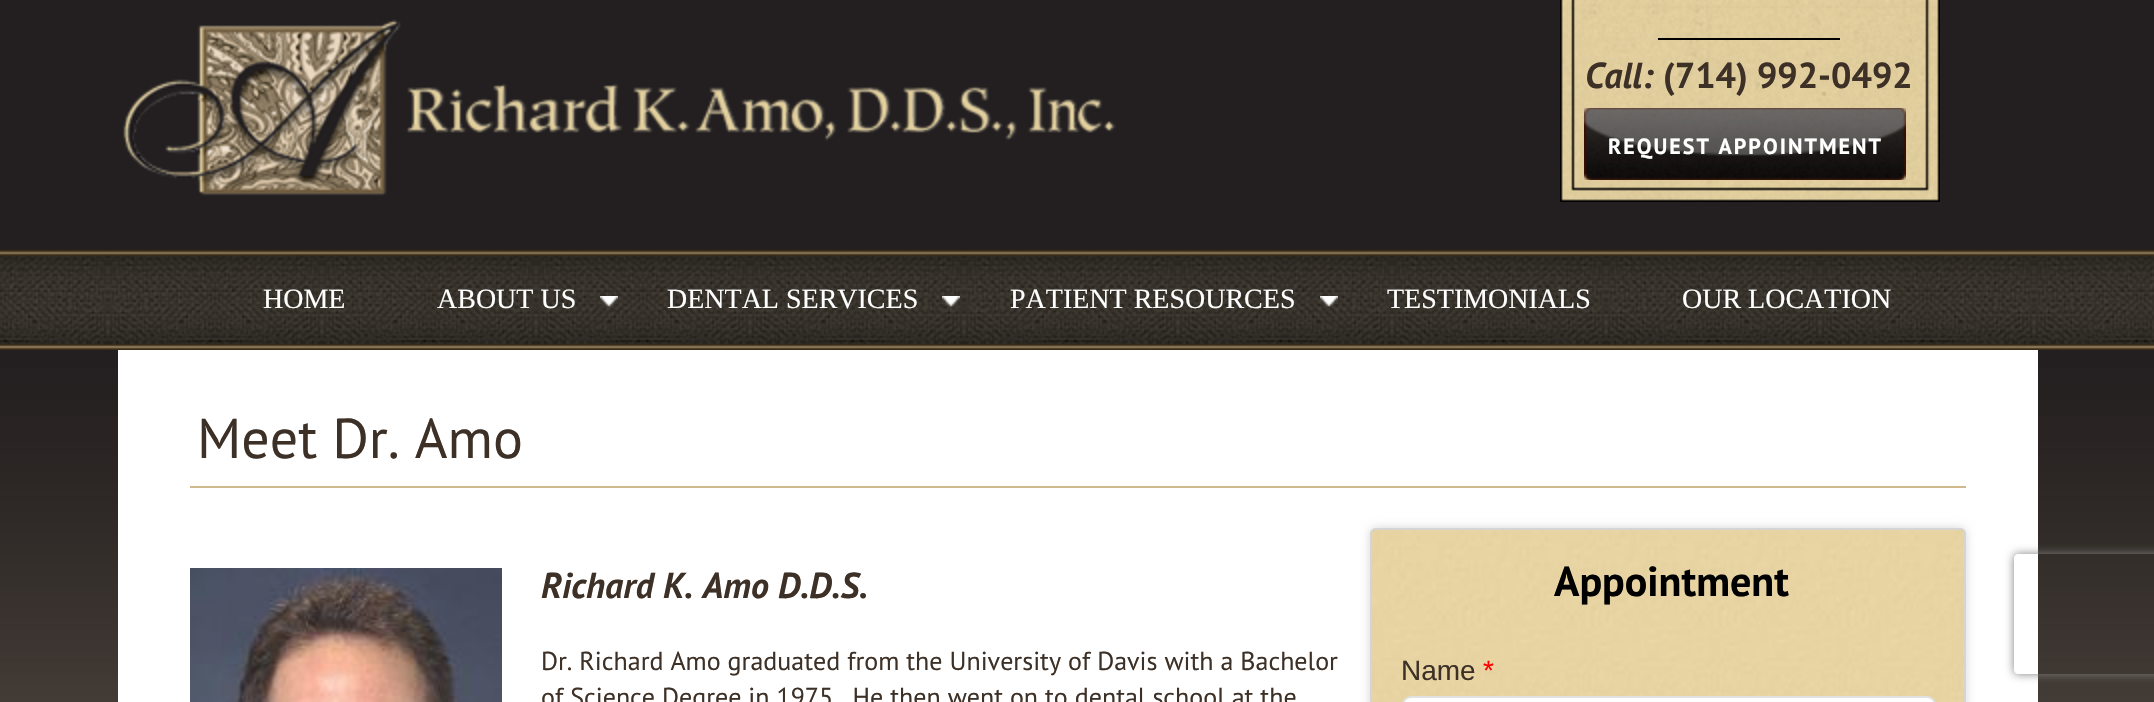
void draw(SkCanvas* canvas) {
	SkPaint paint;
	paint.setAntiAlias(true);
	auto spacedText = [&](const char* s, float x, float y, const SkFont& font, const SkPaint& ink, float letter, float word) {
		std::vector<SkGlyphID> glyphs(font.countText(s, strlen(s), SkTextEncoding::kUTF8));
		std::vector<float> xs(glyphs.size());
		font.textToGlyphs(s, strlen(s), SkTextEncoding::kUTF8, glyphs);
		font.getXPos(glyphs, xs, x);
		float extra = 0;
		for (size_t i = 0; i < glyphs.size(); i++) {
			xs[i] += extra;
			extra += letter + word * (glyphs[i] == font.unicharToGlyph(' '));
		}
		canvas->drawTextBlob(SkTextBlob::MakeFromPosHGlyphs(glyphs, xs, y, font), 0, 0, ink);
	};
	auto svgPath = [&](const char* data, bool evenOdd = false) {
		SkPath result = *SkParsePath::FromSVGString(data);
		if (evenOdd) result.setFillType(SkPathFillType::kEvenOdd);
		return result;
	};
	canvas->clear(0xffffffff);
	canvas->drawImageRect(SkImages::DeferredFromEncodedData(SkData::MakeFromFileName("img1.png")), SkRect::MakeXYWH(0, 0, 2154, 702), SkSamplingOptions());
	canvas->drawImageRect(SkImages::DeferredFromEncodedData(SkData::MakeFromFileName("img2.png")), SkRect::MakeXYWH(123, 19, 993, 177), SkSamplingOptions());
	canvas->drawImageRect(SkImages::DeferredFromEncodedData(SkData::MakeFromFileName("img3.png")), SkRect::MakeXYWH(1560, 0, 380, 202), SkSamplingOptions());
	paint.setColor(0xff000000);
	canvas->drawRect(SkRect::MakeXYWH(1658, 38, 182, 2), paint);
	SkFont f1(fontMgr->matchFamilyStyle("PT Sans", SkFontStyle::BoldItalic()), 36);
	f1.setSubpixel(true);
	paint.setColor(0xff3d3127);
	canvas->drawString("Call:", 1585, 88, f1, paint);
	SkFont f2(fontMgr->matchFamilyStyle("PT Sans", SkFontStyle::Bold()), 36);
	f2.setSubpixel(true);
	canvas->drawString("(714) 992-0492", 1663, 88, f2, paint);
	canvas->drawImageRect(SkImages::DeferredFromEncodedData(SkData::MakeFromFileName("img4.png")), SkRect::MakeXYWH(1584, 108, 322, 72), SkSamplingOptions());
	SkFont f3(fontMgr->matchFamilyStyle("PT Sans", SkFontStyle::Bold()), 22);
	f3.setSubpixel(true);
	paint.setColor(0xffffffff);
	spacedText("REQUEST APPOINTMENT", 1608, 154, f3, paint, 2, 0);
	canvas->drawImageRect(SkImages::DeferredFromEncodedData(SkData::MakeFromFileName("img5.png")), SkRect::MakeXYWH(0, 250, 2154, 100), SkSamplingOptions());
	SkFont f4(fontMgr->matchFamilyStyle("Liberation Serif", SkFontStyle::Normal()), 28);
	f4.setSubpixel(true);
	canvas->drawString("HOME", 263, 308, f4, paint);
	canvas->drawImageRect(SkImages::DeferredFromEncodedData(SkData::MakeFromFileName("img6.png")), SkRect::MakeXYWH(600, 296, 18, 11), SkSamplingOptions());
	canvas->drawString("ABOUT US", 437, 308, f4, paint);
	canvas->drawImageRect(SkImages::DeferredFromEncodedData(SkData::MakeFromFileName("img7.png")), SkRect::MakeXYWH(942, 296, 18, 11), SkSamplingOptions());
	canvas->drawString("DENTAL SERVICES", 667, 308, f4, paint);
	canvas->drawImageRect(SkImages::DeferredFromEncodedData(SkData::MakeFromFileName("img8.png")), SkRect::MakeXYWH(1320, 296, 18, 11), SkSamplingOptions());
	canvas->drawString("PATIENT RESOURCES", 1010, 308, f4, paint);
	canvas->drawString("TESTIMONIALS", 1387, 308, f4, paint);
	canvas->drawString("OUR LOCATION", 1682, 308, f4, paint);
	canvas->drawRect(SkRect::MakeXYWH(118, 350, 1920, 352), paint);
	paint.setColor(0xffcfb98d);
	canvas->drawRect(SkRect::MakeXYWH(190, 486, 1776, 2), paint);
	SkFont f5(fontMgr->matchFamilyStyle("PT Sans", SkFontStyle::Normal()), 56);
	f5.setSubpixel(true);
	paint.setColor(0xff3d3127);
	canvas->drawString("Meet Dr. Amo", 197, 458, f5, paint);
	canvas->drawImageRect(SkImages::DeferredFromEncodedData(SkData::MakeFromFileName("img9.png")), SkRect::MakeXYWH(190, 568, 312, 134), SkSamplingOptions());
	canvas->drawString("Richard K. Amo D.D.S.", 541, 598, f1, paint);
	SkFont f6(fontMgr->matchFamilyStyle("PT Sans", SkFontStyle::Normal()), 26);
	f6.setSubpixel(true);
	canvas->drawString("Dr. Richard Amo graduated from the University of Davis with a Bachelor", 541, 670, f6, paint);
	canvas->drawString("of Science Degree in 1975.  He then went on to dental school at the", 541, 706, f6, paint);
	paint.setColor(0xffd6d5d5);
	paint.setMaskFilter(SkMaskFilter::MakeBlur(kNormal_SkBlurStyle, 5));
	canvas->drawRoundRect(SkRect::MakeXYWH(1370, 528, 596, 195), 6, 6, paint);
	paint.setMaskFilter(nullptr);
	canvas->drawImageRect(SkImages::DeferredFromEncodedData(SkData::MakeFromFileName("img10.png")), SkRect::MakeXYWH(1370, 528, 596, 174), SkSamplingOptions());
	paint.setStroke(true);
	paint.setStrokeWidth(2);
	canvas->drawRoundRect(SkRect::MakeXYWH(1371, 529, 594, 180), 5, 5, paint);
	SkFont f7(fontMgr->matchFamilyStyle("PT Sans", SkFontStyle::Bold()), 42);
	f7.setSubpixel(true);
	paint.setStroke(false);
	paint.setColor(0xff000000);
	canvas->drawString("Appointment", 1554, 596, f7, paint);
	SkFont f8(fontMgr->matchFamilyStyle("Liberation Sans", SkFontStyle::Normal()), 28);
	f8.setSubpixel(true);
	paint.setColor(0xff3d3127);
	canvas->drawString("Name", 1401, 680, f8, paint);
	paint.setColor(0xffff0000);
	canvas->drawString("*", 1483, 680, f8, paint);
	paint.setColor(0xffffffff);
	canvas->drawRoundRect(SkRect::MakeXYWH(1403, 697, 532, 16), 9, 9, paint);
	paint.setStroke(true);
	paint.setColor(0xffe1e1e1);
	canvas->drawRoundRect(SkRect::MakeXYWH(1403, 697, 532, 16), 9, 9, paint);
	canvas->save();
	canvas->clipPath(svgPath("M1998 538H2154V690H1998ZM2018 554H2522C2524 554 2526 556 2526 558V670C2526 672 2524 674 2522 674H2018C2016 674 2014 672 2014 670V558C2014 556 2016 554 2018 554Z", true), true);
	paint.setStroke(false);
	paint.setColor(0xff808080);
	paint.setMaskFilter(SkMaskFilter::MakeBlur(kNormal_SkBlurStyle, 5));
	canvas->drawRoundRect(SkRect::MakeXYWH(2014, 554, 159, 120), 4, 4, paint);
	paint.setMaskFilter(nullptr);
	canvas->restore();
}
